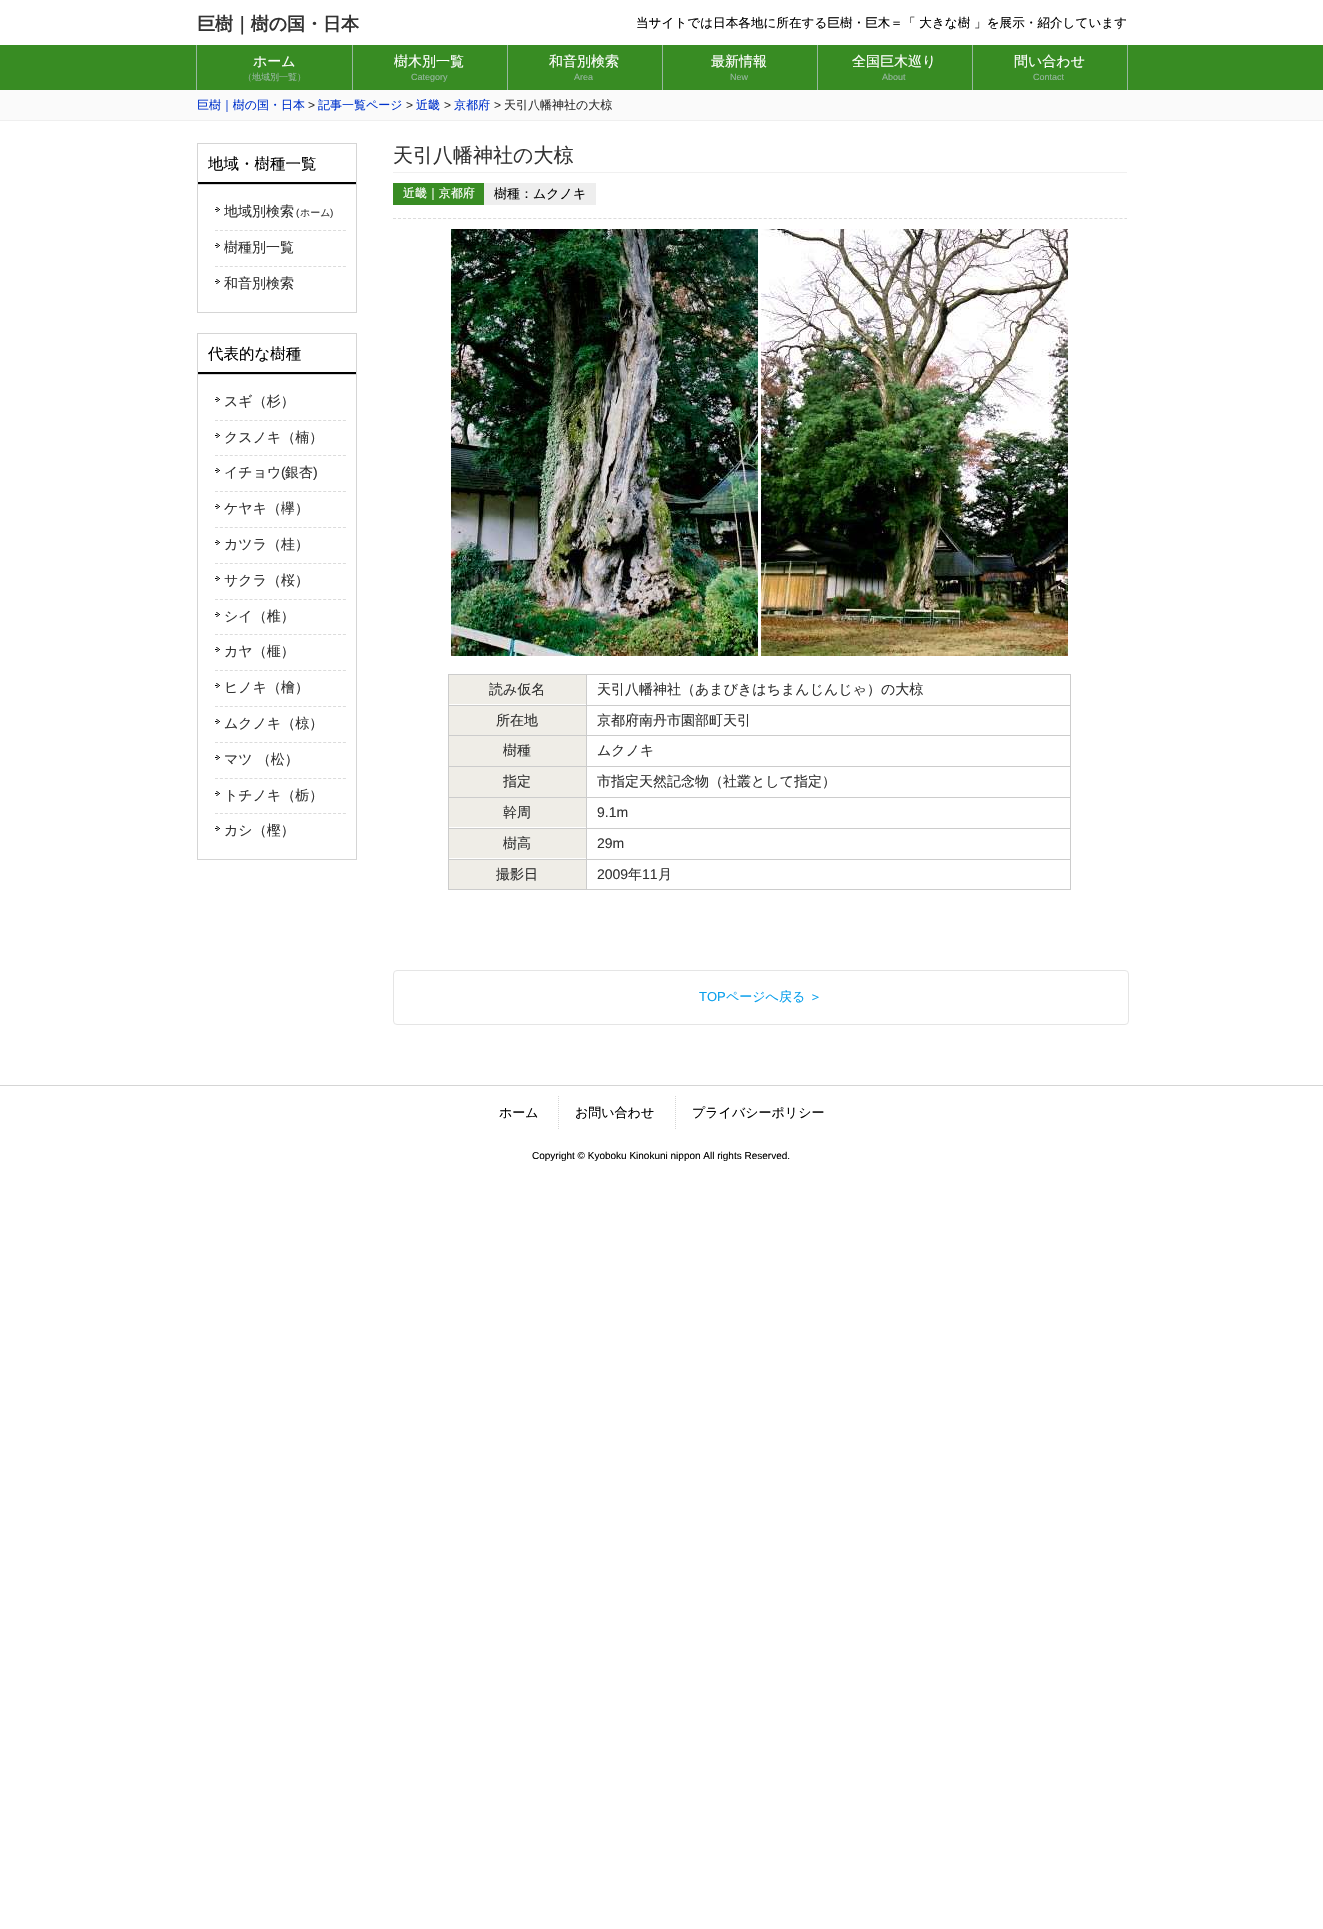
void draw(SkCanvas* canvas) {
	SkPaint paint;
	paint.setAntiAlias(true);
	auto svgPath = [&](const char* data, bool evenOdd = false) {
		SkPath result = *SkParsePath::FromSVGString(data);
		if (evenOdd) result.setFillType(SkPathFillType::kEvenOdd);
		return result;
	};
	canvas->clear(0xffffffff);
	SkFont f1(fontMgr->matchFamilyStyle("WenQuanYi Zen Hei", SkFontStyle::Bold()), 18);
	f1.setSubpixel(true);
	paint.setColor(0xff333333);
	canvas->drawString("巨樹｜樹の国・日本", 197, 30, f1, paint);
	SkFont f2(fontMgr->matchFamilyStyle("WenQuanYi Zen Hei", SkFontStyle(500, SkFontStyle::kNormal_Width, SkFontStyle::kUpright_Slant)), 12.6);
	f2.setSubpixel(true);
	paint.setColor(0xff000000);
	canvas->drawString("当サイトでは日本各地に所在する巨樹・巨木＝「 大きな樹 」を展示・紹介しています", 636, 27, f2, paint);
	paint.setColor(0xff388c23);
	canvas->drawRect(SkRect::MakeXYWH(0, 45, 1323, 45), paint);
	paint.setColor(0xff97b7a0);
	canvas->drawRect(SkRect::MakeXYWH(196, 45, 1, 45), paint);
	canvas->drawRect(SkRect::MakeXYWH(352, 45, 1, 45), paint);
	SkFont f3(fontMgr->matchFamilyStyle("WenQuanYi Zen Hei", SkFontStyle(500, SkFontStyle::kNormal_Width, SkFontStyle::kUpright_Slant)), 14);
	f3.setSubpixel(true);
	paint.setColor(0xffffffff);
	canvas->drawString("ホーム", 253, 66, f3, paint);
	SkFont f4(fontMgr->matchFamilyStyle("WenQuanYi Zen Hei", SkFontStyle(500, SkFontStyle::kNormal_Width, SkFontStyle::kUpright_Slant)), 9);
	f4.setSubpixel(true);
	paint.setColor(0xff97b7a0);
	canvas->drawString("（地域別一覧）", 243, 80, f4, paint);
	canvas->drawRect(SkRect::MakeXYWH(507, 45, 1, 45), paint);
	paint.setColor(0xffffffff);
	canvas->drawString("樹木別一覧", 394, 66, f3, paint);
	SkFont f5(fontMgr->matchFamilyStyle("Liberation Sans", SkFontStyle::Normal()), 9);
	f5.setSubpixel(true);
	paint.setColor(0xff97b7a0);
	canvas->drawString("Category", 411, 80, f5, paint);
	canvas->drawRect(SkRect::MakeXYWH(662, 45, 1, 45), paint);
	paint.setColor(0xffffffff);
	canvas->drawString("和音別検索", 549, 66, f3, paint);
	paint.setColor(0xff97b7a0);
	canvas->drawString("Area", 574, 80, f5, paint);
	canvas->drawRect(SkRect::MakeXYWH(817, 45, 1, 45), paint);
	paint.setColor(0xffffffff);
	canvas->drawString("最新情報", 711, 66, f3, paint);
	paint.setColor(0xff97b7a0);
	canvas->drawString("New", 730, 80, f5, paint);
	canvas->drawRect(SkRect::MakeXYWH(972, 45, 1, 45), paint);
	paint.setColor(0xffffffff);
	canvas->drawString("全国巨木巡り", 852, 66, f3, paint);
	paint.setColor(0xff97b7a0);
	canvas->drawString("About", 882, 80, f5, paint);
	canvas->drawRect(SkRect::MakeXYWH(1127, 45, 1, 45), paint);
	paint.setColor(0xffffffff);
	canvas->drawString("問い合わせ", 1014, 66, f3, paint);
	paint.setColor(0xff97b7a0);
	canvas->drawString("Contact", 1033, 80, f5, paint);
	paint.setColor(0xfffafafa);
	canvas->drawRect(SkRect::MakeXYWH(0, 90, 1323, 30), paint);
	paint.setColor(0xffefefef);
	canvas->drawRect(SkRect::MakeXYWH(0, 120, 1323, 1), paint);
	SkFont f6(fontMgr->matchFamilyStyle("WenQuanYi Zen Hei", SkFontStyle(500, SkFontStyle::kNormal_Width, SkFontStyle::kUpright_Slant)), 12);
	f6.setSubpixel(true);
	paint.setColor(0xff0033cc);
	canvas->drawString("巨樹｜樹の国・日本", 197, 109, f6, paint);
	SkFont f7(fontMgr->matchFamilyStyle("Liberation Sans", SkFontStyle::Normal()), 12);
	f7.setSubpixel(true);
	paint.setColor(0xff333333);
	canvas->drawString(">", 308, 109, f7, paint);
	paint.setColor(0xff0033cc);
	canvas->drawString("記事一覧ページ", 318, 109, f6, paint);
	paint.setColor(0xff333333);
	canvas->drawString(">", 406, 109, f7, paint);
	paint.setColor(0xff0033cc);
	canvas->drawString("近畿", 416, 109, f6, paint);
	paint.setColor(0xff333333);
	canvas->drawString(">", 444, 109, f7, paint);
	paint.setColor(0xff0033cc);
	canvas->drawString("京都府", 454, 109, f6, paint);
	paint.setColor(0xff333333);
	canvas->drawString(">", 494, 109, f7, paint);
	canvas->drawString("天引八幡神社の大椋", 504, 109, f6, paint);
	paint.setColor(0xff000000);
	canvas->drawRect(SkRect::MakeXYWH(197, 182, 160, 2), paint);
	paint.setColor(0xffd5d5d5);
	canvas->drawRect(SkRect::MakeXYWH(197, 143, 160, 1), paint);
	canvas->drawRect(SkRect::MakeXYWH(356, 143, 1, 41), paint);
	canvas->drawRect(SkRect::MakeXYWH(197, 143, 1, 41), paint);
	SkFont f8(fontMgr->matchFamilyStyle("WenQuanYi Zen Hei", SkFontStyle(500, SkFontStyle::kNormal_Width, SkFontStyle::kUpright_Slant)), 15.5);
	f8.setSubpixel(true);
	paint.setColor(0xff000000);
	canvas->drawString("地域・樹種一覧", 208, 169, f8, paint);
	paint.setStroke(true);
	paint.setStrokeWidth(1);
	paint.setColor(0xffd5d5d5);
	canvas->drawRect(SkRect::MakeXYWH(197.5, 184.5, 159, 128), paint);
	canvas->drawImageRect(SkImages::DeferredFromEncodedData(SkData::MakeFromFileName("img1.png")), SkRect::MakeXYWH(215, 207, 5, 5), SkSamplingOptions());
	paint.setColor(0xffdcdcdc);
	paint.setPathEffect(SkDashPathEffect::Make({{3, 1.92f}}, 0));
	canvas->drawPath(svgPath("M215 230.5H346"), paint);
	paint.setPathEffect(nullptr);
	paint.setStroke(false);
	paint.setColor(0xff333333);
	canvas->drawString("地域別検索", 224, 216, f3, paint);
	SkFont f9(fontMgr->matchFamilyStyle("Liberation Sans", SkFontStyle::Normal()), 10);
	f9.setSubpixel(true);
	canvas->drawString("(", 296, 216, f9, paint);
	SkFont f10(fontMgr->matchFamilyStyle("WenQuanYi Zen Hei", SkFontStyle(500, SkFontStyle::kNormal_Width, SkFontStyle::kUpright_Slant)), 10);
	f10.setSubpixel(true);
	canvas->drawString("ホーム", 300, 216, f10, paint);
	canvas->drawString(")", 330, 216, f9, paint);
	canvas->drawImageRect(SkImages::DeferredFromEncodedData(SkData::MakeFromFileName("img1.png")), SkRect::MakeXYWH(215, 243, 5, 5), SkSamplingOptions());
	paint.setStroke(true);
	paint.setColor(0xffdcdcdc);
	paint.setPathEffect(SkDashPathEffect::Make({{3, 1.92f}}, 0));
	canvas->drawPath(svgPath("M215 266.5H346"), paint);
	paint.setPathEffect(nullptr);
	paint.setStroke(false);
	paint.setColor(0xff333333);
	canvas->drawString("樹種別一覧", 224, 252, f3, paint);
	canvas->drawImageRect(SkImages::DeferredFromEncodedData(SkData::MakeFromFileName("img1.png")), SkRect::MakeXYWH(215, 279, 5, 5), SkSamplingOptions());
	canvas->drawString("和音別検索", 224, 288, f3, paint);
	paint.setColor(0xff000000);
	canvas->drawRect(SkRect::MakeXYWH(197, 372, 160, 2), paint);
	paint.setColor(0xffd5d5d5);
	canvas->drawRect(SkRect::MakeXYWH(197, 333, 160, 1), paint);
	canvas->drawRect(SkRect::MakeXYWH(356, 333, 1, 41), paint);
	canvas->drawRect(SkRect::MakeXYWH(197, 333, 1, 41), paint);
	paint.setColor(0xff000000);
	canvas->drawString("代表的な樹種", 208, 359, f8, paint);
	paint.setStroke(true);
	paint.setColor(0xffd5d5d5);
	canvas->drawRect(SkRect::MakeXYWH(197.5, 374.5, 159, 485), paint);
	canvas->drawImageRect(SkImages::DeferredFromEncodedData(SkData::MakeFromFileName("img1.png")), SkRect::MakeXYWH(215, 397, 5, 5), SkSamplingOptions());
	paint.setColor(0xffdcdcdc);
	paint.setPathEffect(SkDashPathEffect::Make({{3, 1.92f}}, 0));
	canvas->drawPath(svgPath("M215 420.5H346"), paint);
	paint.setPathEffect(nullptr);
	paint.setStroke(false);
	paint.setColor(0xff333333);
	canvas->drawString("スギ（杉）", 224, 406, f3, paint);
	canvas->drawImageRect(SkImages::DeferredFromEncodedData(SkData::MakeFromFileName("img1.png")), SkRect::MakeXYWH(215, 433, 5, 5), SkSamplingOptions());
	paint.setStroke(true);
	paint.setColor(0xffdcdcdc);
	paint.setPathEffect(SkDashPathEffect::Make({{3, 1.92f}}, 0));
	canvas->drawPath(svgPath("M215 455.5H346"), paint);
	paint.setPathEffect(nullptr);
	paint.setStroke(false);
	paint.setColor(0xff333333);
	canvas->drawString("クスノキ（楠）", 224, 442, f3, paint);
	canvas->drawImageRect(SkImages::DeferredFromEncodedData(SkData::MakeFromFileName("img1.png")), SkRect::MakeXYWH(215, 468, 5, 5), SkSamplingOptions());
	paint.setStroke(true);
	paint.setColor(0xffdcdcdc);
	paint.setPathEffect(SkDashPathEffect::Make({{3, 1.92f}}, 0));
	canvas->drawPath(svgPath("M215 491.5H346"), paint);
	paint.setPathEffect(nullptr);
	paint.setStroke(false);
	paint.setColor(0xff333333);
	canvas->drawString("イチョウ", 224, 477, f3, paint);
	SkFont f11(fontMgr->matchFamilyStyle("Liberation Sans", SkFontStyle::Normal()), 14);
	f11.setSubpixel(true);
	canvas->drawString("(", 281, 477, f11, paint);
	canvas->drawString("銀杏", 285, 477, f3, paint);
	canvas->drawString(")", 313, 477, f11, paint);
	canvas->drawImageRect(SkImages::DeferredFromEncodedData(SkData::MakeFromFileName("img1.png")), SkRect::MakeXYWH(215, 504, 5, 5), SkSamplingOptions());
	paint.setStroke(true);
	paint.setColor(0xffdcdcdc);
	paint.setPathEffect(SkDashPathEffect::Make({{3, 1.92f}}, 0));
	canvas->drawPath(svgPath("M215 527.5H346"), paint);
	paint.setPathEffect(nullptr);
	paint.setStroke(false);
	paint.setColor(0xff333333);
	canvas->drawString("ケヤキ（欅）", 224, 513, f3, paint);
	canvas->drawImageRect(SkImages::DeferredFromEncodedData(SkData::MakeFromFileName("img1.png")), SkRect::MakeXYWH(215, 540, 5, 5), SkSamplingOptions());
	paint.setStroke(true);
	paint.setColor(0xffdcdcdc);
	paint.setPathEffect(SkDashPathEffect::Make({{3, 1.92f}}, 0));
	canvas->drawPath(svgPath("M215 563.5H346"), paint);
	paint.setPathEffect(nullptr);
	paint.setStroke(false);
	paint.setColor(0xff333333);
	canvas->drawString("カツラ（桂）", 224, 549, f3, paint);
	canvas->drawImageRect(SkImages::DeferredFromEncodedData(SkData::MakeFromFileName("img1.png")), SkRect::MakeXYWH(215, 576, 5, 5), SkSamplingOptions());
	paint.setStroke(true);
	paint.setColor(0xffdcdcdc);
	paint.setPathEffect(SkDashPathEffect::Make({{3, 1.92f}}, 0));
	canvas->drawPath(svgPath("M215 599.5H346"), paint);
	paint.setPathEffect(nullptr);
	paint.setStroke(false);
	paint.setColor(0xff333333);
	canvas->drawString("サクラ（桜）", 224, 585, f3, paint);
	canvas->drawImageRect(SkImages::DeferredFromEncodedData(SkData::MakeFromFileName("img1.png")), SkRect::MakeXYWH(215, 612, 5, 5), SkSamplingOptions());
	paint.setStroke(true);
	paint.setColor(0xffdcdcdc);
	paint.setPathEffect(SkDashPathEffect::Make({{3, 1.92f}}, 0));
	canvas->drawPath(svgPath("M215 634.5H346"), paint);
	paint.setPathEffect(nullptr);
	paint.setStroke(false);
	paint.setColor(0xff333333);
	canvas->drawString("シイ（椎）", 224, 621, f3, paint);
	canvas->drawImageRect(SkImages::DeferredFromEncodedData(SkData::MakeFromFileName("img1.png")), SkRect::MakeXYWH(215, 647, 5, 5), SkSamplingOptions());
	paint.setStroke(true);
	paint.setColor(0xffdcdcdc);
	paint.setPathEffect(SkDashPathEffect::Make({{3, 1.92f}}, 0));
	canvas->drawPath(svgPath("M215 670.5H346"), paint);
	paint.setPathEffect(nullptr);
	paint.setStroke(false);
	paint.setColor(0xff333333);
	canvas->drawString("カヤ（榧）", 224, 656, f3, paint);
	canvas->drawImageRect(SkImages::DeferredFromEncodedData(SkData::MakeFromFileName("img1.png")), SkRect::MakeXYWH(215, 683, 5, 5), SkSamplingOptions());
	paint.setStroke(true);
	paint.setColor(0xffdcdcdc);
	paint.setPathEffect(SkDashPathEffect::Make({{3, 1.92f}}, 0));
	canvas->drawPath(svgPath("M215 706.5H346"), paint);
	paint.setPathEffect(nullptr);
	paint.setStroke(false);
	paint.setColor(0xff333333);
	canvas->drawString("ヒノキ（檜）", 224, 692, f3, paint);
	canvas->drawImageRect(SkImages::DeferredFromEncodedData(SkData::MakeFromFileName("img1.png")), SkRect::MakeXYWH(215, 719, 5, 5), SkSamplingOptions());
	paint.setStroke(true);
	paint.setColor(0xffdcdcdc);
	paint.setPathEffect(SkDashPathEffect::Make({{3, 1.92f}}, 0));
	canvas->drawPath(svgPath("M215 742.5H346"), paint);
	paint.setPathEffect(nullptr);
	paint.setStroke(false);
	paint.setColor(0xff333333);
	canvas->drawString("ムクノキ（椋）", 224, 728, f3, paint);
	canvas->drawImageRect(SkImages::DeferredFromEncodedData(SkData::MakeFromFileName("img1.png")), SkRect::MakeXYWH(215, 755, 5, 5), SkSamplingOptions());
	paint.setStroke(true);
	paint.setColor(0xffdcdcdc);
	paint.setPathEffect(SkDashPathEffect::Make({{3, 1.92f}}, 0));
	canvas->drawPath(svgPath("M215 778.5H346"), paint);
	paint.setPathEffect(nullptr);
	paint.setStroke(false);
	paint.setColor(0xff333333);
	canvas->drawString("マツ （松）", 224, 764, f3, paint);
	canvas->drawImageRect(SkImages::DeferredFromEncodedData(SkData::MakeFromFileName("img1.png")), SkRect::MakeXYWH(215, 791, 5, 5), SkSamplingOptions());
	paint.setStroke(true);
	paint.setColor(0xffdcdcdc);
	paint.setPathEffect(SkDashPathEffect::Make({{3, 1.92f}}, 0));
	canvas->drawPath(svgPath("M215 813.5H346"), paint);
	paint.setPathEffect(nullptr);
	paint.setStroke(false);
	paint.setColor(0xff333333);
	canvas->drawString("トチノキ（栃）", 224, 800, f3, paint);
	canvas->drawImageRect(SkImages::DeferredFromEncodedData(SkData::MakeFromFileName("img1.png")), SkRect::MakeXYWH(215, 826, 5, 5), SkSamplingOptions());
	canvas->drawString("カシ（樫）", 224, 835, f3, paint);
	paint.setColor(0xfff0f0f0);
	canvas->drawRect(SkRect::MakeXYWH(393, 172, 734, 1), paint);
	SkFont f12(fontMgr->matchFamilyStyle("WenQuanYi Zen Hei", SkFontStyle(500, SkFontStyle::kNormal_Width, SkFontStyle::kUpright_Slant)), 20);
	f12.setSubpixel(true);
	paint.setColor(0xff333333);
	canvas->drawString("天引八幡神社の大椋", 393, 162, f12, paint);
	paint.setStroke(true);
	paint.setColor(0xffdcdcdc);
	paint.setPathEffect(SkDashPathEffect::Make({{3, 2.01f}}, 0));
	canvas->drawPath(svgPath("M393 218.5H1127"), paint);
	paint.setPathEffect(nullptr);
	paint.setStroke(false);
	paint.setColor(0xff388c23);
	canvas->drawRect(SkRect::MakeXYWH(393, 183, 91, 22), paint);
	paint.setColor(0xffffffff);
	canvas->drawString("近畿｜京都府", 403, 197, f6, paint);
	paint.setColor(0xffeeeeee);
	canvas->drawRect(SkRect::MakeXYWH(484, 183, 112, 22), paint);
	SkFont f13(fontMgr->matchFamilyStyle("WenQuanYi Zen Hei", SkFontStyle(500, SkFontStyle::kNormal_Width, SkFontStyle::kUpright_Slant)), 13);
	f13.setSubpixel(true);
	paint.setColor(0xff000000);
	canvas->drawString("樹種：ムクノキ", 494, 198, f13, paint);
	canvas->drawImageRect(SkImages::DeferredFromEncodedData(SkData::MakeFromFileName("img2.png")), SkRect::MakeXYWH(451, 229, 307, 427), SkSamplingOptions());
	canvas->drawImageRect(SkImages::DeferredFromEncodedData(SkData::MakeFromFileName("img3.png")), SkRect::MakeXYWH(761, 229, 307, 427), SkSamplingOptions());
	paint.setColor(0xffcccccc);
	canvas->drawRect(SkRect::MakeXYWH(448, 674, 623, 1), paint);
	canvas->drawRect(SkRect::MakeXYWH(1070, 674, 1, 216), paint);
	canvas->drawRect(SkRect::MakeXYWH(448, 889, 623, 1), paint);
	canvas->drawRect(SkRect::MakeXYWH(448, 674, 1, 216), paint);
	paint.setColor(0xffefede7);
	canvas->drawRect(SkRect::MakeXYWH(449, 675, 137, 29), paint);
	paint.setColor(0xffcccccc);
	canvas->drawRect(SkRect::MakeXYWH(586, 859, 1, 31), paint);
	canvas->drawRect(SkRect::MakeXYWH(586, 859, 485, 1), paint);
	canvas->drawRect(SkRect::MakeXYWH(586, 828, 1, 32), paint);
	canvas->drawRect(SkRect::MakeXYWH(586, 828, 485, 1), paint);
	canvas->drawRect(SkRect::MakeXYWH(586, 797, 1, 32), paint);
	canvas->drawRect(SkRect::MakeXYWH(586, 797, 485, 1), paint);
	canvas->drawRect(SkRect::MakeXYWH(586, 766, 1, 32), paint);
	canvas->drawRect(SkRect::MakeXYWH(586, 766, 485, 1), paint);
	canvas->drawRect(SkRect::MakeXYWH(586, 735, 1, 32), paint);
	canvas->drawRect(SkRect::MakeXYWH(586, 735, 485, 1), paint);
	canvas->drawRect(SkRect::MakeXYWH(586, 705, 1, 31), paint);
	canvas->drawRect(SkRect::MakeXYWH(586, 705, 485, 1), paint);
	canvas->drawRect(SkRect::MakeXYWH(586, 674, 1, 32), paint);
	canvas->drawRect(SkRect::MakeXYWH(448, 705, 139, 1), paint);
	paint.setColor(0xff333333);
	canvas->drawString("読み仮名", 489, 694, f3, paint);
	canvas->drawString("天引八幡神社（あまびきはちまんじんじゃ）の大椋", 597, 694, f3, paint);
	paint.setColor(0xffefede7);
	canvas->drawRect(SkRect::MakeXYWH(449, 706, 137, 29), paint);
	paint.setColor(0xffcccccc);
	canvas->drawRect(SkRect::MakeXYWH(448, 735, 139, 1), paint);
	paint.setColor(0xff333333);
	canvas->drawString("所在地", 496, 725, f3, paint);
	canvas->drawString("京都府南丹市園部町天引", 597, 725, f3, paint);
	paint.setColor(0xffefede7);
	canvas->drawRect(SkRect::MakeXYWH(449, 736, 137, 30), paint);
	paint.setColor(0xffcccccc);
	canvas->drawRect(SkRect::MakeXYWH(448, 766, 139, 1), paint);
	paint.setColor(0xff333333);
	canvas->drawString("樹種", 503, 755, f3, paint);
	canvas->drawString("ムクノキ", 597, 755, f3, paint);
	paint.setColor(0xffefede7);
	canvas->drawRect(SkRect::MakeXYWH(449, 767, 137, 30), paint);
	paint.setColor(0xffcccccc);
	canvas->drawRect(SkRect::MakeXYWH(448, 797, 139, 1), paint);
	paint.setColor(0xff333333);
	canvas->drawString("指定", 503, 786, f3, paint);
	canvas->drawString("市指定天然記念物（社叢として指定）", 597, 786, f3, paint);
	paint.setColor(0xffefede7);
	canvas->drawRect(SkRect::MakeXYWH(449, 798, 137, 29), paint);
	paint.setColor(0xffcccccc);
	canvas->drawRect(SkRect::MakeXYWH(448, 828, 139, 1), paint);
	paint.setColor(0xff333333);
	canvas->drawString("幹周", 503, 817, f3, paint);
	canvas->drawString("9.1m", 597, 817, f11, paint);
	paint.setColor(0xffefede7);
	canvas->drawRect(SkRect::MakeXYWH(449, 829, 137, 29), paint);
	paint.setColor(0xffcccccc);
	canvas->drawRect(SkRect::MakeXYWH(448, 859, 139, 1), paint);
	paint.setColor(0xff333333);
	canvas->drawString("樹高", 503, 848, f3, paint);
	canvas->drawString("29m", 597, 848, f11, paint);
	paint.setColor(0xffefede7);
	canvas->drawRect(SkRect::MakeXYWH(449, 860, 137, 29), paint);
	paint.setColor(0xff333333);
	canvas->drawString("撮影日", 496, 879, f3, paint);
	canvas->drawString("2009", 597, 879, f11, paint);
	canvas->drawString("年", 628, 879, f3, paint);
	canvas->drawString("11", 642, 879, f11, paint);
	canvas->drawString("月", 658, 879, f3, paint);
	paint.setStroke(true);
	paint.setColor(0xffe5e5e5);
	canvas->drawRoundRect(SkRect::MakeXYWH(393.5, 970.5, 735, 54), 3.5, 3.5, paint);
	SkFont f14(fontMgr->matchFamilyStyle("Liberation Sans", SkFontStyle::Normal()), 13);
	f14.setSubpixel(true);
	paint.setStroke(false);
	paint.setColor(0xff099fec);
	canvas->drawString("TOP", 699, 1001, f14, paint);
	canvas->drawString("ページへ戻る ＞", 726, 1001, f13, paint);
	paint.setColor(0xffd5d5d5);
	canvas->drawRect(SkRect::MakeXYWH(0, 1085, 1323, 1), paint);
	paint.setColor(0xff000000);
	canvas->drawString("ホーム", 499, 1117, f13, paint);
	paint.setStroke(true);
	paint.setColor(0xffd5d5d5);
	paint.setPathEffect(SkDashPathEffect::Make({{1, 1}}, 0));
	canvas->drawPath(svgPath("M558.5 1096V1129"), paint);
	paint.setPathEffect(nullptr);
	paint.setStroke(false);
	paint.setColor(0xff000000);
	canvas->drawString("お問い合わせ", 575, 1117, f13, paint);
	paint.setStroke(true);
	paint.setColor(0xffd5d5d5);
	paint.setPathEffect(SkDashPathEffect::Make({{1, 1}}, 0));
	canvas->drawPath(svgPath("M675.5 1096V1129"), paint);
	paint.setPathEffect(nullptr);
	paint.setStroke(false);
	paint.setColor(0xff000000);
	canvas->drawString("プライバシーポリシー", 692, 1117, f13, paint);
	canvas->drawString("Copyright © Kyoboku Kinokuni nippon All rights Reserved.", 532, 1159, f9, paint);
}
